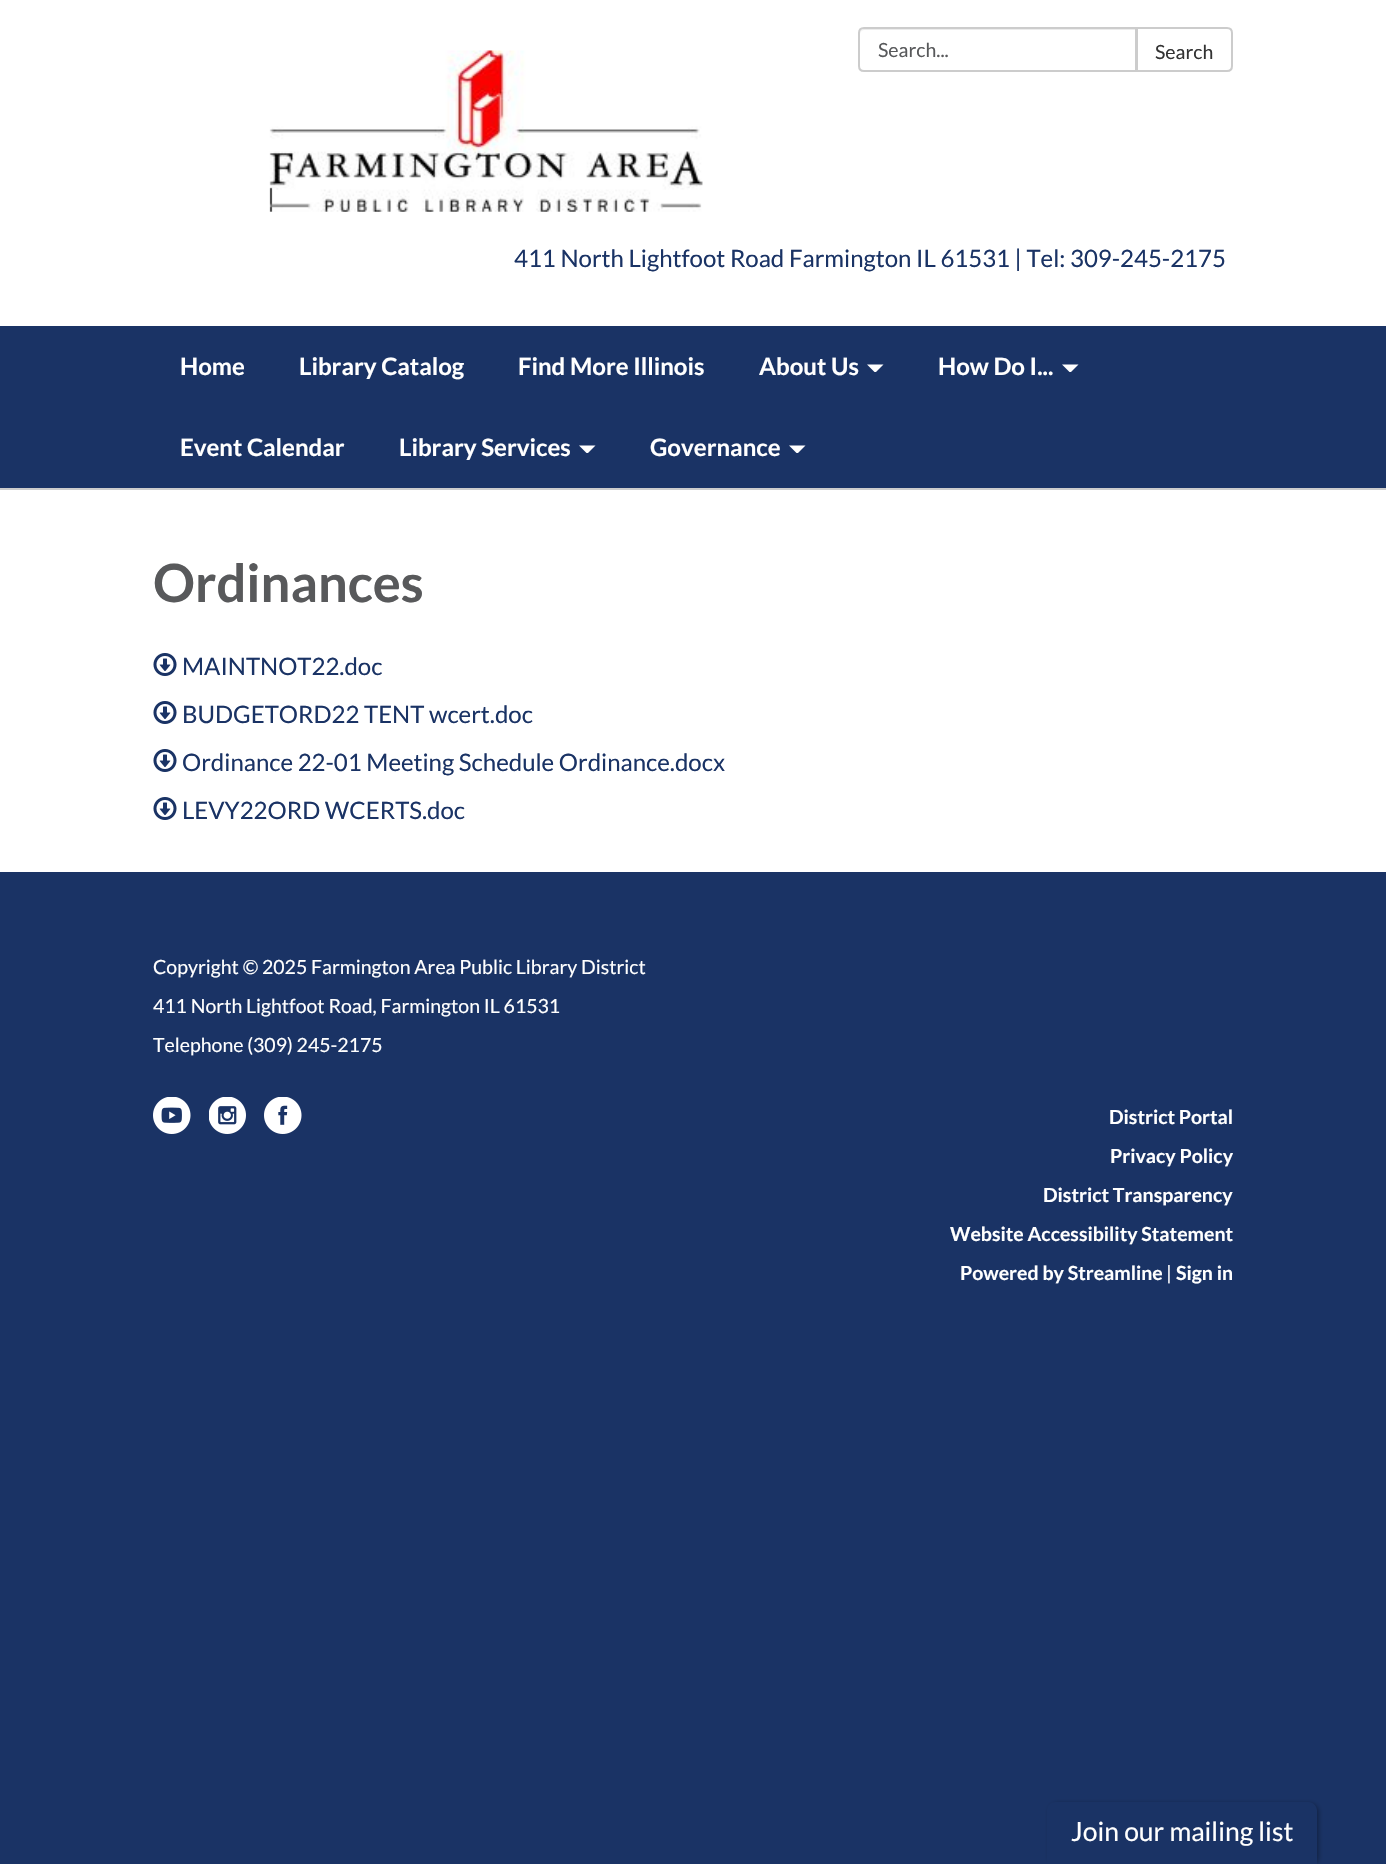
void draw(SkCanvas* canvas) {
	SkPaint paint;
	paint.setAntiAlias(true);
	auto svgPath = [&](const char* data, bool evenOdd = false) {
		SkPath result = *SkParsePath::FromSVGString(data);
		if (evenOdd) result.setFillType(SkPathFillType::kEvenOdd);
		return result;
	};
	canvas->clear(0xff1a3365);
	paint.setColor(0xffffffff);
	canvas->drawRect(SkRect::MakeXYWH(0, 0, 1386, 326), paint);
	canvas->drawImageRect(SkImages::DeferredFromEncodedData(SkData::MakeFromFileName("img1.png")), SkRect::MakeXYWH(269, 50, 434, 162), SkSamplingOptions());
	paint.setColor(0xffececec);
	canvas->drawPath(svgPath("M864 30H1136V29H865C862 29 860 31 860 34C860 32 862 30 864 30Z"), paint);
	paint.setStroke(true);
	paint.setStrokeWidth(2);
	paint.setColor(0xffcccccc);
	canvas->drawPath(svgPath("M864 28H1136V71H864C861 71 859 69 859 66V33C859 30 861 28 864 28Z"), paint);
	SkFont f1(fontMgr->matchFamilyStyle("Lato", SkFontStyle::Normal()), 19.5);
	f1.setSubpixel(true);
	paint.setStroke(false);
	paint.setColor(0xff58595b);
	canvas->drawString("Search...", 878, 57, f1, paint);
	paint.setColor(0xffffffff);
	canvas->drawPath(svgPath("M1137 28H1227C1230 28 1232 30 1232 33V66C1232 69 1230 71 1227 71H1137Z"), paint);
	paint.setStroke(true);
	paint.setColor(0xffcccccc);
	canvas->drawPath(svgPath("M1137 28H1227C1230 28 1232 30 1232 33V66C1232 69 1230 71 1227 71H1137Z"), paint);
	paint.setStroke(false);
	paint.setColor(0xff333333);
	canvas->drawString("Search", 1155, 59, f1, paint);
	SkFont f2(fontMgr->matchFamilyStyle("Lato", SkFontStyle::Normal()), 24);
	f2.setSubpixel(true);
	paint.setColor(0xff1a3365);
	canvas->drawString("411 North Lightfoot Road Farmington IL 61531 | Tel: 309-245-2175", 514, 267, f2, paint);
	SkFont f3(fontMgr->matchFamilyStyle("Lato", SkFontStyle::Bold()), 24);
	f3.setSubpixel(true);
	paint.setColor(0xffffffff);
	canvas->drawString("Home", 180, 375, f3, paint);
	canvas->drawString("Library Catalog", 299, 375, f3, paint);
	canvas->drawString("Find More Illinois", 518, 375, f3, paint);
	canvas->drawString("About Us", 759, 375, f3, paint);
	canvas->drawPath(svgPath("M867 364.5H883.5L876 372H874.5Z"), paint);
	canvas->drawString("How Do I...", 938, 375, f3, paint);
	canvas->drawPath(svgPath("M1062 364.5H1078.5L1071 372H1069.5Z"), paint);
	canvas->drawString("Event Calendar", 180, 456, f3, paint);
	canvas->drawString("Library Services", 399, 456, f3, paint);
	canvas->drawPath(svgPath("M579 445.5H595.5L588 453H586.5Z"), paint);
	canvas->drawString("Governance", 650, 456, f3, paint);
	canvas->drawPath(svgPath("M789 445.5H805.5L798 453H796.5Z"), paint);
	canvas->drawRect(SkRect::MakeXYWH(0, 490, 1386, 382), paint);
	paint.setColor(0xffcccccc);
	canvas->drawRect(SkRect::MakeXYWH(0, 488, 1386, 2), paint);
	SkFont f4(fontMgr->matchFamilyStyle("Lato", SkFontStyle::Bold()), 52.5);
	f4.setSubpixel(true);
	paint.setColor(0xff58595b);
	canvas->drawString("Ordinances", 153, 602, f4, paint);
	canvas->drawImageRect(SkImages::DeferredFromEncodedData(SkData::MakeFromFileName("img2.png")), SkRect::MakeXYWH(153, 653, 24, 23), SkSamplingOptions());
	paint.setColor(0xff1a3365);
	canvas->drawString("MAINTNOT22.doc", 182, 675, f2, paint);
	canvas->drawImageRect(SkImages::DeferredFromEncodedData(SkData::MakeFromFileName("img2.png")), SkRect::MakeXYWH(153, 701, 24, 23), SkSamplingOptions());
	canvas->drawString("BUDGETORD22 TENT wcert.doc", 182, 723, f2, paint);
	canvas->drawImageRect(SkImages::DeferredFromEncodedData(SkData::MakeFromFileName("img2.png")), SkRect::MakeXYWH(153, 749, 24, 23), SkSamplingOptions());
	canvas->drawString("Ordinance 22-01 Meeting Schedule Ordinance.docx", 182, 771, f2, paint);
	canvas->drawImageRect(SkImages::DeferredFromEncodedData(SkData::MakeFromFileName("img2.png")), SkRect::MakeXYWH(153, 797, 24, 23), SkSamplingOptions());
	canvas->drawString("LEVY22ORD WCERTS.doc", 182, 819, f2, paint);
	paint.setColor(0xffffffff);
	canvas->drawString("Copyright © 2025 Farmington Area Public Library District", 153, 974, f1, paint);
	canvas->drawString("411 North Lightfoot Road, Farmington IL 61531", 153, 1013, f1, paint);
	canvas->drawString("Telephone (309) 245-2175", 153, 1052, f1, paint);
	canvas->drawImageRect(SkImages::DeferredFromEncodedData(SkData::MakeFromFileName("img3.png")), SkRect::MakeXYWH(153, 1097, 38, 37), SkSamplingOptions());
	canvas->drawImageRect(SkImages::DeferredFromEncodedData(SkData::MakeFromFileName("img4.png")), SkRect::MakeXYWH(209, 1097, 37, 37), SkSamplingOptions());
	canvas->drawImageRect(SkImages::DeferredFromEncodedData(SkData::MakeFromFileName("img5.png")), SkRect::MakeXYWH(264, 1097, 38, 37), SkSamplingOptions());
	SkFont f5(fontMgr->matchFamilyStyle("Lato", SkFontStyle::Bold()), 19.5);
	f5.setSubpixel(true);
	canvas->drawString("District Portal", 1109, 1124, f5, paint);
	canvas->drawString("Privacy Policy", 1110, 1163, f5, paint);
	canvas->drawString("District Transparency", 1043, 1202, f5, paint);
	canvas->drawString("Website Accessibility Statement", 950, 1241, f5, paint);
	canvas->drawString("Powered by Streamline", 960, 1280, f5, paint);
	canvas->drawString("|", 1166, 1280, f1, paint);
	canvas->drawString("Sign in", 1176, 1280, f5, paint);
	paint.setColor(0x4d000000);
	paint.setMaskFilter(SkMaskFilter::MakeBlur(kNormal_SkBlurStyle, 2));
	canvas->drawRoundRect(SkRect::MakeXYWH(1049, 1803, 270, 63), 9, 9, paint);
	paint.setMaskFilter(nullptr);
	paint.setColor(0xff1a3365);
	canvas->drawPath(svgPath("M1056 1802H1308C1313 1802 1317 1806 1317 1811V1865H1047V1811C1047 1806 1051 1802 1056 1802Z"), paint);
	SkFont f6(fontMgr->matchFamilyStyle("Lato", SkFontStyle::Normal()), 26.5);
	f6.setSubpixel(true);
	paint.setColor(0xffffffff);
	canvas->drawString("Join our mailing list", 1071, 1841, f6, paint);
}
